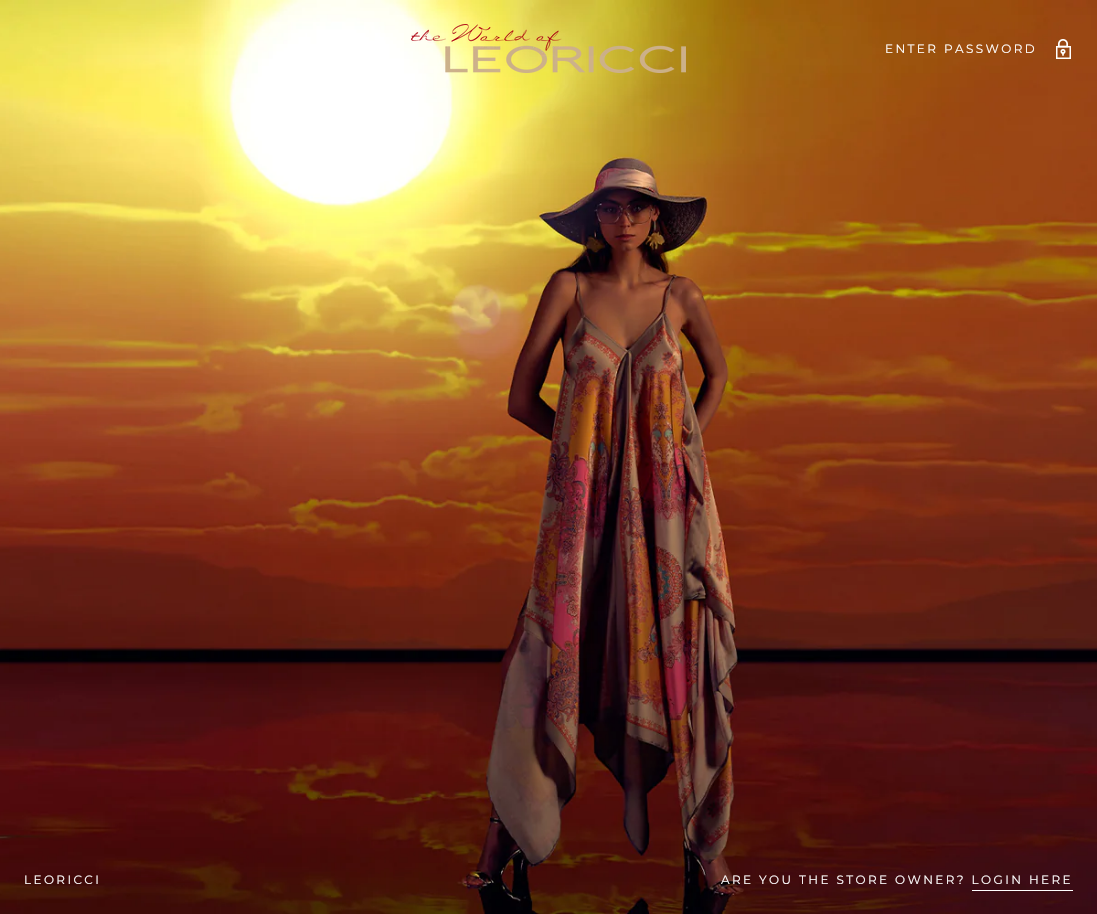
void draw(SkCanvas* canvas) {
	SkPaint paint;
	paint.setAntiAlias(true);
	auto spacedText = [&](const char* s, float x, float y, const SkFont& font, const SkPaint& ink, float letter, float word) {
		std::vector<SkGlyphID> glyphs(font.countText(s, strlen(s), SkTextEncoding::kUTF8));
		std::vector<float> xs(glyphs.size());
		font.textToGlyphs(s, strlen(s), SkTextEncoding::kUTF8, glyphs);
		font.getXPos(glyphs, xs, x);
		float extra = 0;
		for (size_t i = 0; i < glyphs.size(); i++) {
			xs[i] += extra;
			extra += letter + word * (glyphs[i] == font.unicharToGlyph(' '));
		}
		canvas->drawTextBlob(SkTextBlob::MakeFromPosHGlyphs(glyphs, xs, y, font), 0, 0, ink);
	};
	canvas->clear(0xffffffff);
	canvas->drawImageRect(SkImages::DeferredFromEncodedData(SkData::MakeFromFileName("img1.png")), SkRect::MakeXYWH(0, 0, 1097, 914), SkSamplingOptions());
	canvas->drawImageRect(SkImages::DeferredFromEncodedData(SkData::MakeFromFileName("img2.png")), SkRect::MakeXYWH(411, 24, 275, 49), SkSamplingOptions());
	SkFont f1(fontMgr->matchFamilyStyle("Montserrat", SkFontStyle::Normal()), 12);
	f1.setSubpixel(true);
	paint.setColor(0xffffffff);
	spacedText("ENTER PASSWORD", 885, 53, f1, paint, 2.4, 0);
	canvas->drawImageRect(SkImages::DeferredFromEncodedData(SkData::MakeFromFileName("img3.png")), SkRect::MakeXYWH(1056, 39, 15, 20), SkSamplingOptions());
	spacedText("LEORICCI", 24, 884, f1, paint, 2.4, 0);
	spacedText("ARE YOU THE STORE OWNER? LOGIN HERE", 721, 884, f1, paint, 2.4, 0);
	canvas->drawRect(SkRect::MakeXYWH(972, 890, 101, 1), paint);
}
